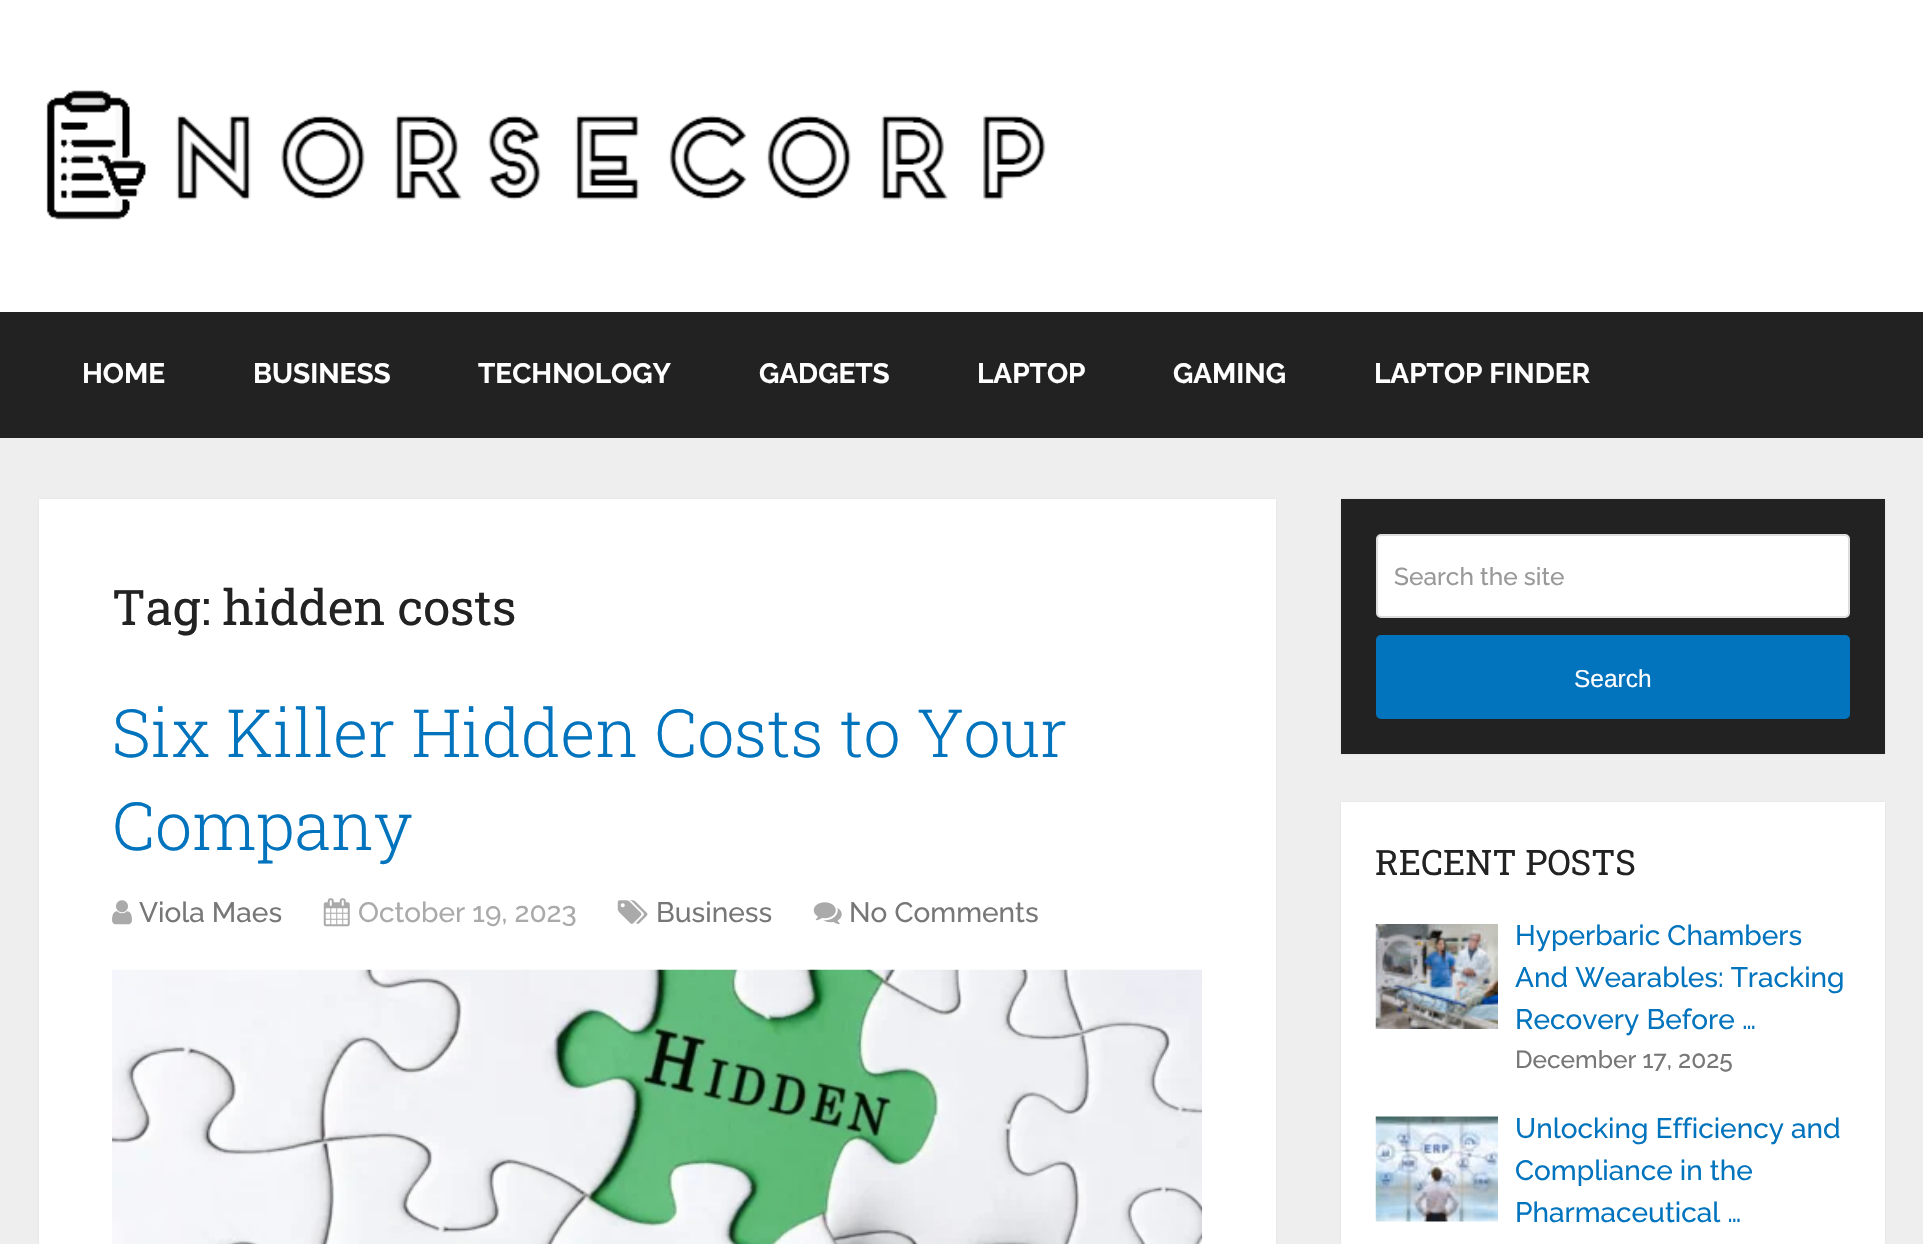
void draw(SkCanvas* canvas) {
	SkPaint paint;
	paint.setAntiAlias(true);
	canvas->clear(0xffeeeeee);
	paint.setColor(0xffffffff);
	canvas->drawRect(SkRect::MakeXYWH(0, 0, 1923, 312), paint);
	canvas->drawImageRect(SkImages::DeferredFromEncodedData(SkData::MakeFromFileName("img1.png")), SkRect::MakeXYWH(46, 90, 1000, 130), SkSamplingOptions());
	paint.setColor(0xff222222);
	canvas->drawRect(SkRect::MakeXYWH(0, 312, 1923, 126), paint);
	SkFont f1(fontMgr->matchFamilyStyle("Raleway", SkFontStyle::Bold()), 28);
	f1.setSubpixel(true);
	paint.setColor(0xffffffff);
	canvas->drawString("HOME", 82, 383, f1, paint);
	canvas->drawString("BUSINESS", 253, 383, f1, paint);
	canvas->drawString("TECHNOLOGY", 478, 383, f1, paint);
	canvas->drawString("GADGETS", 759, 383, f1, paint);
	canvas->drawString("LAPTOP", 977, 383, f1, paint);
	canvas->drawString("GAMING", 1173, 383, f1, paint);
	canvas->drawString("LAPTOP FINDER", 1374, 383, f1, paint);
	paint.setColor(0x1a323232);
	paint.setMaskFilter(SkMaskFilter::MakeBlur(kNormal_SkBlurStyle, 1));
	canvas->drawRect(SkRect::MakeXYWH(39, 499, 1237, 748), paint);
	paint.setMaskFilter(nullptr);
	paint.setColor(0xffffffff);
	canvas->drawRect(SkRect::MakeXYWH(39, 499, 1237, 745), paint);
	SkFont f2(fontMgr->matchFamilyStyle("Roboto Slab", SkFontStyle::Normal()), 49);
	f2.setSubpixel(true);
	paint.setColor(0xff222222);
	canvas->drawString("Tag: hidden costs", 112, 625, f2, paint);
	SkFont f3(fontMgr->matchFamilyStyle("Roboto Slab", SkFontStyle(300, SkFontStyle::kNormal_Width, SkFontStyle::kUpright_Slant)), 66.5);
	f3.setSubpixel(true);
	paint.setColor(0xff0274be);
	canvas->drawString("Six Killer Hidden Costs to Your", 112, 757, f3, paint);
	canvas->drawString("Company", 112, 850, f3, paint);
	canvas->drawImageRect(SkImages::DeferredFromEncodedData(SkData::MakeFromFileName("img2.png")), SkRect::MakeXYWH(112, 900, 20, 25), SkSamplingOptions());
	SkFont f4(fontMgr->matchFamilyStyle("Raleway", SkFontStyle(500, SkFontStyle::kNormal_Width, SkFontStyle::kUpright_Slant)), 28);
	f4.setSubpixel(true);
	paint.setColor(0xff777777);
	canvas->drawString("Viola Maes", 139, 922, f4, paint);
	canvas->drawImageRect(SkImages::DeferredFromEncodedData(SkData::MakeFromFileName("img3.png")), SkRect::MakeXYWH(323, 898, 27, 29), SkSamplingOptions());
	paint.setColor(0xffaaaaaa);
	canvas->drawString("October 19, 2023", 358, 922, f4, paint);
	canvas->drawImageRect(SkImages::DeferredFromEncodedData(SkData::MakeFromFileName("img4.png")), SkRect::MakeXYWH(617, 900, 31, 24), SkSamplingOptions());
	paint.setColor(0xff777777);
	canvas->drawString("Business", 656, 922, f4, paint);
	canvas->drawImageRect(SkImages::DeferredFromEncodedData(SkData::MakeFromFileName("img5.png")), SkRect::MakeXYWH(813, 902, 29, 23), SkSamplingOptions());
	canvas->drawString("No Comments", 849, 922, f4, paint);
	canvas->drawImageRect(SkImages::DeferredFromEncodedData(SkData::MakeFromFileName("img6.png")), SkRect::MakeXYWH(112, 969, 1091, 275), SkSamplingOptions());
	paint.setColor(0x1a323232);
	paint.setMaskFilter(SkMaskFilter::MakeBlur(kNormal_SkBlurStyle, 1));
	canvas->drawRect(SkRect::MakeXYWH(1341, 499, 544, 255), paint);
	paint.setMaskFilter(nullptr);
	paint.setColor(0xff222222);
	canvas->drawRect(SkRect::MakeXYWH(1341, 499, 544, 255), paint);
	paint.setColor(0xffffffff);
	canvas->drawRoundRect(SkRect::MakeXYWH(1377, 535, 472, 82), 4, 4, paint);
	paint.setStroke(true);
	paint.setStrokeWidth(2);
	paint.setColor(0xffdddddd);
	canvas->drawRoundRect(SkRect::MakeXYWH(1377, 535, 472, 82), 4, 4, paint);
	SkFont f5(fontMgr->matchFamilyStyle("Raleway", SkFontStyle(500, SkFontStyle::kNormal_Width, SkFontStyle::kUpright_Slant)), 24.5);
	f5.setSubpixel(true);
	paint.setStroke(false);
	paint.setColor(0xff999999);
	canvas->drawString("Search the site", 1394, 585, f5, paint);
	paint.setColor(0xff0274be);
	canvas->drawRoundRect(SkRect::MakeXYWH(1376, 635, 474, 84), 5, 5, paint);
	SkFont f6(fontMgr->matchFamilyStyle("Liberation Sans", SkFontStyle::Normal()), 24.5);
	f6.setSubpixel(true);
	paint.setColor(0xffffffff);
	canvas->drawString("Search", 1574, 687, f6, paint);
	paint.setColor(0x1a323232);
	paint.setMaskFilter(SkMaskFilter::MakeBlur(kNormal_SkBlurStyle, 1));
	canvas->drawRect(SkRect::MakeXYWH(1341, 802, 544, 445), paint);
	paint.setMaskFilter(nullptr);
	paint.setColor(0xffffffff);
	canvas->drawRect(SkRect::MakeXYWH(1341, 802, 544, 442), paint);
	SkFont f7(fontMgr->matchFamilyStyle("Roboto Slab", SkFontStyle::Normal()), 35);
	f7.setSubpixel(true);
	paint.setColor(0xff222222);
	canvas->drawString("RECENT POSTS", 1375, 875, f7, paint);
	canvas->drawImageRect(SkImages::DeferredFromEncodedData(SkData::MakeFromFileName("img7.png")), SkRect::MakeXYWH(1375, 924, 123, 105), SkSamplingOptions());
	paint.setColor(0xff0274be);
	canvas->drawString("Hyperbaric Chambers", 1515, 945, f4, paint);
	canvas->drawString("And Wearables: Tracking", 1515, 987, f4, paint);
	canvas->drawString("Recovery Before …", 1515, 1029, f4, paint);
	paint.setColor(0xff777777);
	canvas->drawString("December 17, 2025", 1515, 1068, f5, paint);
	canvas->drawImageRect(SkImages::DeferredFromEncodedData(SkData::MakeFromFileName("img8.png")), SkRect::MakeXYWH(1375, 1116, 123, 106), SkSamplingOptions());
	paint.setColor(0xff0274be);
	canvas->drawString("Unlocking Efficiency and", 1515, 1138, f4, paint);
	canvas->drawString("Compliance in the", 1515, 1180, f4, paint);
	canvas->drawString("Pharmaceutical …", 1515, 1222, f4, paint);
}
